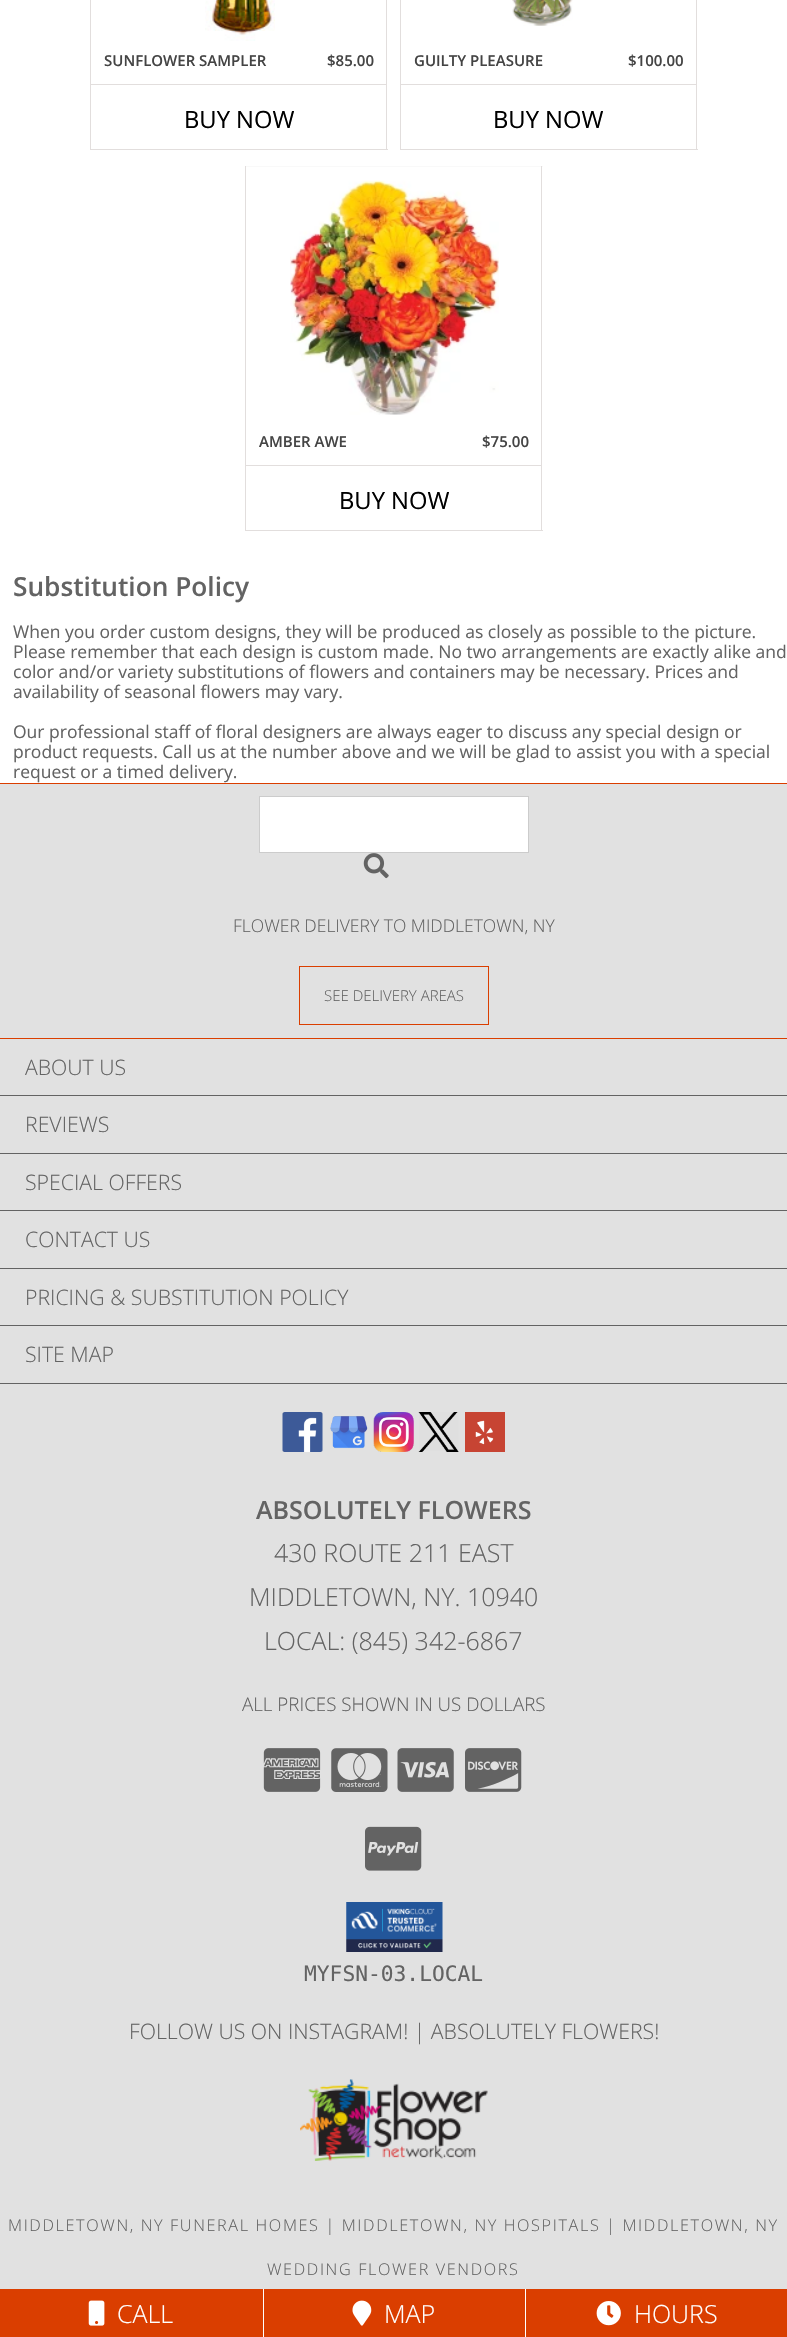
void draw(SkCanvas* canvas) {
	SkPaint paint;
	paint.setAntiAlias(true);
	auto spacedText = [&](const char* s, float x, float y, const SkFont& font, const SkPaint& ink, float letter, float word) {
		std::vector<SkGlyphID> glyphs(font.countText(s, strlen(s), SkTextEncoding::kUTF8));
		std::vector<float> xs(glyphs.size());
		font.textToGlyphs(s, strlen(s), SkTextEncoding::kUTF8, glyphs);
		font.getXPos(glyphs, xs, x);
		float extra = 0;
		for (size_t i = 0; i < glyphs.size(); i++) {
			xs[i] += extra;
			extra += letter + word * (glyphs[i] == font.unicharToGlyph(' '));
		}
		canvas->drawTextBlob(SkTextBlob::MakeFromPosHGlyphs(glyphs, xs, y, font), 0, 0, ink);
	};
	canvas->clear(0xffffffff);
	paint.setColor(0xffe2dedd);
	canvas->drawRect(SkRect::MakeXYWH(386, 0, 1, 150), paint);
	canvas->drawRect(SkRect::MakeXYWH(90, 149, 298, 1), paint);
	canvas->drawRect(SkRect::MakeXYWH(90, 0, 1, 150), paint);
	canvas->drawImageRect(SkImages::DeferredFromEncodedData(SkData::MakeFromFileName("img1.png")), SkRect::MakeXYWH(205, 0, 70, 41), SkSamplingOptions());
	SkFont f1(fontMgr->matchFamilyStyle("Open Sans", SkFontStyle(600, SkFontStyle::kNormal_Width, SkFontStyle::kUpright_Slant)), 15);
	f1.setSubpixel(true);
	paint.setColor(0xff444444);
	canvas->drawString("SUNFLOWER SAMPLER", 104, 66, f1, paint);
	canvas->drawString("$85.00", 327, 66, f1, paint);
	paint.setColor(0xffe2dedd);
	canvas->drawRect(SkRect::MakeXYWH(91, 84, 295, 1), paint);
	SkFont f2(fontMgr->matchFamilyStyle("Open Sans", SkFontStyle::Normal()), 23.75);
	f2.setSubpixel(true);
	paint.setColor(0xff000000);
	canvas->drawString("BUY NOW", 184, 128, f2, paint);
	paint.setColor(0xffe2dedd);
	canvas->drawRect(SkRect::MakeXYWH(696, 0, 1, 150), paint);
	canvas->drawRect(SkRect::MakeXYWH(400, 149, 298, 1), paint);
	canvas->drawRect(SkRect::MakeXYWH(400, 0, 1, 150), paint);
	canvas->drawImageRect(SkImages::DeferredFromEncodedData(SkData::MakeFromFileName("img2.png")), SkRect::MakeXYWH(512, 0, 61, 26), SkSamplingOptions());
	paint.setColor(0xff444444);
	canvas->drawString("GUILTY PLEASURE", 414, 66, f1, paint);
	canvas->drawString("$100.00", 628, 66, f1, paint);
	paint.setColor(0xffe2dedd);
	canvas->drawRect(SkRect::MakeXYWH(401, 84, 295, 1), paint);
	paint.setColor(0xff000000);
	canvas->drawString("BUY NOW", 493, 128, f2, paint);
	paint.setColor(0xfff9f9f9);
	canvas->drawRect(SkRect::MakeXYWH(245, 166, 298, 1), paint);
	paint.setColor(0xffe2dedd);
	canvas->drawRect(SkRect::MakeXYWH(541, 166, 1, 365), paint);
	canvas->drawRect(SkRect::MakeXYWH(245, 530, 298, 1), paint);
	canvas->drawRect(SkRect::MakeXYWH(245, 166, 1, 365), paint);
	canvas->drawImageRect(SkImages::DeferredFromEncodedData(SkData::MakeFromFileName("img3.png")), SkRect::MakeXYWH(290, 180, 209, 235), SkSamplingOptions());
	paint.setColor(0xff444444);
	canvas->drawString("AMBER AWE", 259, 447, f1, paint);
	canvas->drawString("$75.00", 482, 447, f1, paint);
	paint.setColor(0xffe2dedd);
	canvas->drawRect(SkRect::MakeXYWH(246, 465, 295, 1), paint);
	paint.setColor(0xff000000);
	canvas->drawString("BUY NOW", 339, 509, f2, paint);
	SkFont f3(fontMgr->matchFamilyStyle("Open Sans", SkFontStyle(600, SkFontStyle::kNormal_Width, SkFontStyle::kUpright_Slant)), 26.25);
	f3.setSubpixel(true);
	paint.setColor(0xff636363);
	canvas->drawString("Substitution Policy", 13, 596, f3, paint);
	SkFont f4(fontMgr->matchFamilyStyle("Open Sans", SkFontStyle::Normal()), 17.5);
	f4.setSubpixel(true);
	canvas->drawString("When you order custom designs, they will be produced as closely as possible to the picture.", 13, 638, f4, paint);
	canvas->drawString("Please remember that each design is custom made. No two arrangements are exactly alike and", 13, 658, f4, paint);
	canvas->drawString("color and/or variety substitutions of flowers and containers may be necessary. Prices and", 13, 678, f4, paint);
	canvas->drawString("availability of seasonal flowers may vary.", 13, 698, f4, paint);
	canvas->drawString("Our professional staff of floral designers are always eager to discuss any special design or", 13, 738, f4, paint);
	canvas->drawString("product requests. Call us at the number above and we will be glad to assist you with a special", 13, 758, f4, paint);
	canvas->drawString("request or a timed delivery.", 13, 778, f4, paint);
	paint.setColor(0xffe1e1e1);
	canvas->drawRect(SkRect::MakeXYWH(0, 784, 787, 254), paint);
	paint.setColor(0xffda3e00);
	canvas->drawRect(SkRect::MakeXYWH(0, 783, 787, 1), paint);
	canvas->drawRect(SkRect::MakeXYWH(0, 1038, 787, 1), paint);
	paint.setColor(0xffffffff);
	canvas->drawRect(SkRect::MakeXYWH(259.5, 796.5, 269, 56), paint);
	paint.setStroke(true);
	paint.setStrokeWidth(1);
	paint.setColor(0xffcccccc);
	canvas->drawRect(SkRect::MakeXYWH(259.5, 796.5, 269, 56), paint);
	canvas->drawImageRect(SkImages::DeferredFromEncodedData(SkData::MakeFromFileName("img4.png")), SkRect::MakeXYWH(363, 853, 26, 26), SkSamplingOptions());
	SkFont f5(fontMgr->matchFamilyStyle("Open Sans", SkFontStyle(300, SkFontStyle::kNormal_Width, SkFontStyle::kUpright_Slant)), 17.5);
	f5.setSubpixel(true);
	paint.setStroke(false);
	paint.setColor(0xff636363);
	canvas->drawString("FLOWER DELIVERY TO MIDDLETOWN, NY", 233, 932, f5, paint);
	paint.setStroke(true);
	paint.setColor(0xffda3e00);
	canvas->drawRect(SkRect::MakeXYWH(299.5, 966.5, 189, 58), paint);
	SkFont f6(fontMgr->matchFamilyStyle("Open Sans", SkFontStyle(300, SkFontStyle::kNormal_Width, SkFontStyle::kUpright_Slant)), 15);
	f6.setSubpixel(true);
	paint.setStroke(false);
	paint.setColor(0xff636363);
	canvas->drawString("SEE DELIVERY AREAS", 324, 1001, f6, paint);
	paint.setColor(0xffe1e1e1);
	canvas->drawRect(SkRect::MakeXYWH(0, 1039, 787, 1250), paint);
	paint.setColor(0xff636363);
	canvas->drawRect(SkRect::MakeXYWH(0, 1095, 787, 1), paint);
	SkFont f7(fontMgr->matchFamilyStyle("Open Sans", SkFontStyle(300, SkFontStyle::kNormal_Width, SkFontStyle::kUpright_Slant)), 21.25);
	f7.setSubpixel(true);
	canvas->drawString("ABOUT US", 25, 1075, f7, paint);
	canvas->drawRect(SkRect::MakeXYWH(0, 1153, 787, 1), paint);
	canvas->drawString("REVIEWS", 25, 1132, f7, paint);
	canvas->drawRect(SkRect::MakeXYWH(0, 1210, 787, 1), paint);
	canvas->drawString("SPECIAL OFFERS", 25, 1190, f7, paint);
	canvas->drawRect(SkRect::MakeXYWH(0, 1268, 787, 1), paint);
	canvas->drawString("CONTACT US", 25, 1247, f7, paint);
	canvas->drawRect(SkRect::MakeXYWH(0, 1325, 787, 1), paint);
	canvas->drawString("PRICING & SUBSTITUTION POLICY", 25, 1305, f7, paint);
	canvas->drawRect(SkRect::MakeXYWH(0, 1383, 787, 1), paint);
	canvas->drawString("SITE MAP", 25, 1362, f7, paint);
	canvas->drawImageRect(SkImages::DeferredFromEncodedData(SkData::MakeFromFileName("img5.png")), SkRect::MakeXYWH(282, 1412, 41, 40), SkSamplingOptions());
	canvas->drawImageRect(SkImages::DeferredFromEncodedData(SkData::MakeFromFileName("img6.png")), SkRect::MakeXYWH(330, 1416, 38, 33), SkSamplingOptions());
	canvas->drawImageRect(SkImages::DeferredFromEncodedData(SkData::MakeFromFileName("img7.png")), SkRect::MakeXYWH(373, 1412, 41, 40), SkSamplingOptions());
	canvas->drawImageRect(SkImages::DeferredFromEncodedData(SkData::MakeFromFileName("img8.png")), SkRect::MakeXYWH(418, 1412, 41, 40), SkSamplingOptions());
	canvas->drawImageRect(SkImages::DeferredFromEncodedData(SkData::MakeFromFileName("img9.png")), SkRect::MakeXYWH(465, 1412, 40, 40), SkSamplingOptions());
	SkFont f8(fontMgr->matchFamilyStyle("Open Sans", SkFontStyle(600, SkFontStyle::kNormal_Width, SkFontStyle::kUpright_Slant)), 25);
	f8.setSubpixel(true);
	canvas->drawString("ABSOLUTELY FLOWERS", 256, 1519, f8, paint);
	SkFont f9(fontMgr->matchFamilyStyle("Open Sans", SkFontStyle(300, SkFontStyle::kNormal_Width, SkFontStyle::kUpright_Slant)), 25);
	f9.setSubpixel(true);
	canvas->drawString("430 ROUTE 211 EAST", 274, 1562, f9, paint);
	canvas->drawString("MIDDLETOWN, NY. 10940", 249, 1606, f9, paint);
	canvas->drawString("LOCAL: (845) 342-6867", 264, 1650, f9, paint);
	SkFont f10(fontMgr->matchFamilyStyle("Open Sans", SkFontStyle(300, SkFontStyle::kNormal_Width, SkFontStyle::kUpright_Slant)), 18.75);
	f10.setSubpixel(true);
	canvas->drawString("ALL PRICES SHOWN IN US DOLLARS", 242, 1711, f10, paint);
	canvas->drawImageRect(SkImages::DeferredFromEncodedData(SkData::MakeFromFileName("img10.png")), SkRect::MakeXYWH(263, 1748, 58, 44), SkSamplingOptions());
	canvas->drawImageRect(SkImages::DeferredFromEncodedData(SkData::MakeFromFileName("img11.png")), SkRect::MakeXYWH(331, 1748, 57, 44), SkSamplingOptions());
	canvas->drawImageRect(SkImages::DeferredFromEncodedData(SkData::MakeFromFileName("img12.png")), SkRect::MakeXYWH(397, 1748, 57, 44), SkSamplingOptions());
	canvas->drawImageRect(SkImages::DeferredFromEncodedData(SkData::MakeFromFileName("img13.png")), SkRect::MakeXYWH(465, 1748, 57, 44), SkSamplingOptions());
	canvas->drawImageRect(SkImages::DeferredFromEncodedData(SkData::MakeFromFileName("img14.png")), SkRect::MakeXYWH(365, 1826, 57, 45), SkSamplingOptions());
	canvas->drawImageRect(SkImages::DeferredFromEncodedData(SkData::MakeFromFileName("img15.png")), SkRect::MakeXYWH(346, 1902, 97, 50), SkSamplingOptions());
	SkFont f11(fontMgr->matchFamilyStyle("DejaVu Sans Mono", SkFontStyle::Normal()), 21.25);
	f11.setSubpixel(true);
	canvas->drawString("MYFSN-03.LOCAL", 304, 1981, f11, paint);
	canvas->drawString("FOLLOW US ON INSTAGRAM! | ABSOLUTELY FLOWERS!", 129, 2039, f7, paint);
	canvas->drawImageRect(SkImages::DeferredFromEncodedData(SkData::MakeFromFileName("img16.png")), SkRect::MakeXYWH(300, 2079, 188, 82), SkSamplingOptions());
	SkFont f12(fontMgr->matchFamilyStyle("Open Sans", SkFontStyle(300, SkFontStyle::kNormal_Width, SkFontStyle::kUpright_Slant)), 16.25);
	f12.setSubpixel(true);
	spacedText("MIDDLETOWN, NY FUNERAL HOMES | MIDDLETOWN, NY HOSPITALS | MIDDLETOWN, NY", 8, 2231, f12, paint, 1.62, 0);
	spacedText("WEDDING FLOWER VENDORS", 267, 2275, f12, paint, 1.62, 0);
	paint.setColor(0xffda3e00);
	canvas->drawRect(SkRect::MakeXYWH(0, 2289, 263, 48), paint);
	canvas->drawImageRect(SkImages::DeferredFromEncodedData(SkData::MakeFromFileName("img17.png")), SkRect::MakeXYWH(88, 2300, 17, 26), SkSamplingOptions());
	paint.setColor(0xffffffff);
	canvas->drawString("CALL", 117, 2323, f9, paint);
	paint.setColor(0xffda3e00);
	canvas->drawRect(SkRect::MakeXYWH(264, 2289, 261, 48), paint);
	canvas->drawImageRect(SkImages::DeferredFromEncodedData(SkData::MakeFromFileName("img18.png")), SkRect::MakeXYWH(352, 2300, 20, 26), SkSamplingOptions());
	paint.setColor(0xffffffff);
	canvas->drawString("MAP", 384, 2323, f9, paint);
	paint.setColor(0xffda3e00);
	canvas->drawRect(SkRect::MakeXYWH(526, 2289, 261, 48), paint);
	canvas->drawImageRect(SkImages::DeferredFromEncodedData(SkData::MakeFromFileName("img19.png")), SkRect::MakeXYWH(596, 2301, 25, 25), SkSamplingOptions());
	paint.setColor(0xffffffff);
	canvas->drawString("HOURS", 634, 2323, f9, paint);
}
